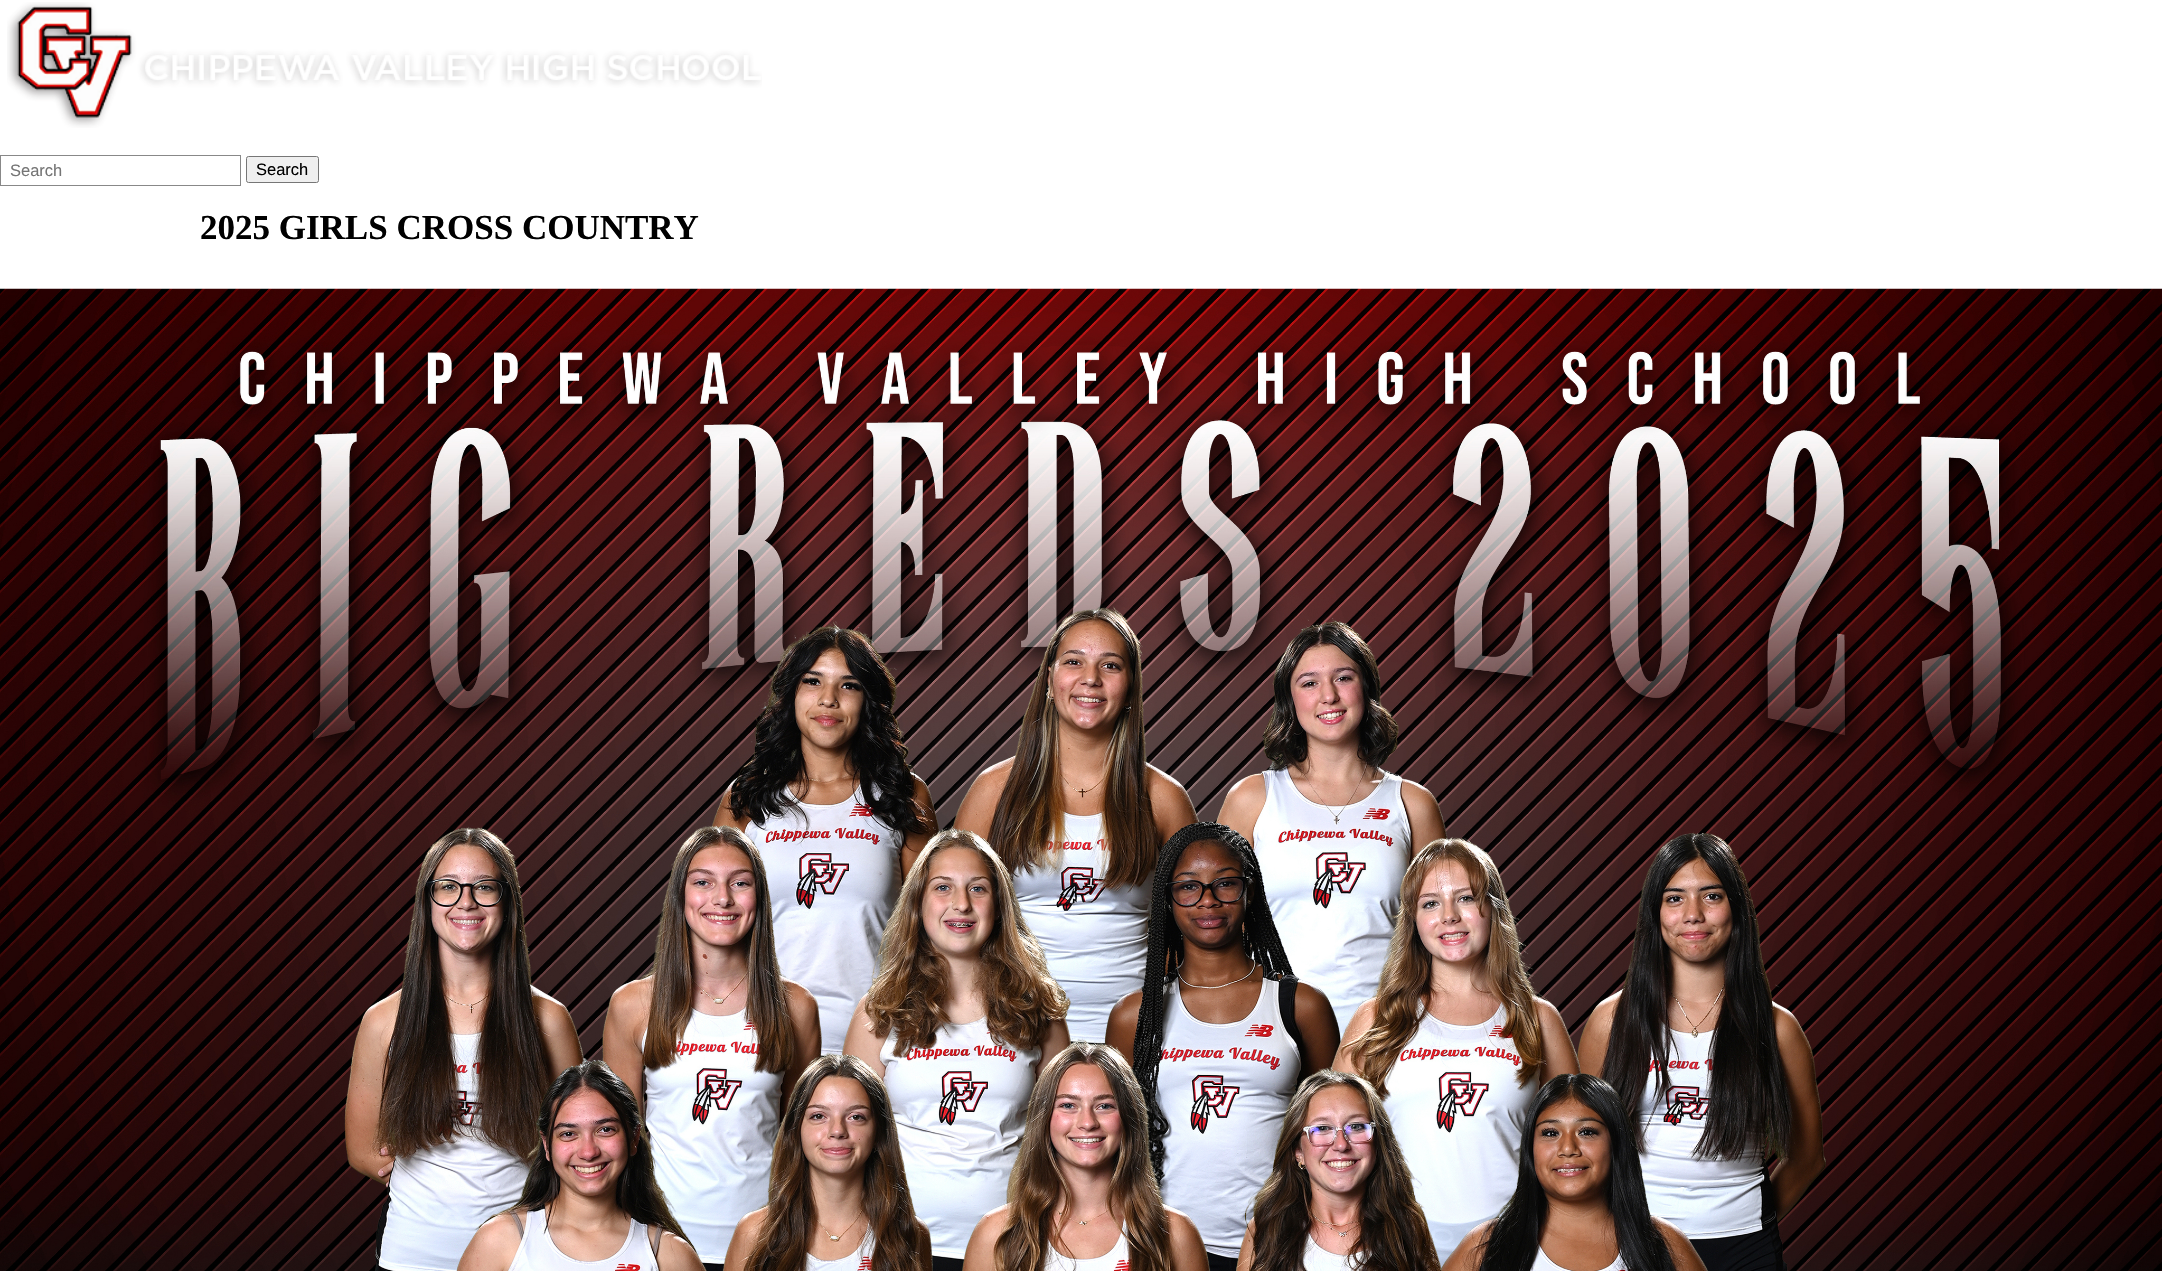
void draw(SkCanvas* canvas) {
	SkPaint paint;
	paint.setAntiAlias(true);
	canvas->clear(0xffffffff);
	canvas->drawImageRect(SkImages::DeferredFromEncodedData(SkData::MakeFromFileName("img1.png")), SkRect::MakeXYWH(7, 2, 755, 126), SkSamplingOptions());
	paint.setStroke(true);
	paint.setStrokeWidth(1);
	paint.setColor(0xff888888);
	canvas->drawRect(SkRect::MakeXYWH(0.5, 155.5, 240, 30), paint);
	SkFont f1(fontMgr->matchFamilyStyle("Liberation Sans", SkFontStyle::Normal()), 16.5);
	f1.setSubpixel(true);
	paint.setStroke(false);
	paint.setColor(0xff757575);
	canvas->drawString("Search", 10, 176, f1, paint);
	paint.setColor(0xffefefef);
	canvas->drawRoundRect(SkRect::MakeXYWH(246.5, 156.5, 72, 26), 2, 2, paint);
	paint.setStroke(true);
	paint.setColor(0xff767676);
	canvas->drawRoundRect(SkRect::MakeXYWH(246.5, 156.5, 72, 26), 2, 2, paint);
	paint.setStroke(false);
	paint.setColor(0xff000000);
	canvas->drawString("Search", 256, 175, f1, paint);
	SkFont f2(fontMgr->matchFamilyStyle("Liberation Serif", SkFontStyle::Bold()), 35);
	f2.setSubpixel(true);
	canvas->drawString("2025 GIRLS CROSS COUNTRY", 200, 239, f2, paint);
	canvas->drawImageRect(SkImages::DeferredFromEncodedData(SkData::MakeFromFileName("img2.png")), SkRect::MakeXYWH(0, 288, 2162, 983), SkSamplingOptions());
}
